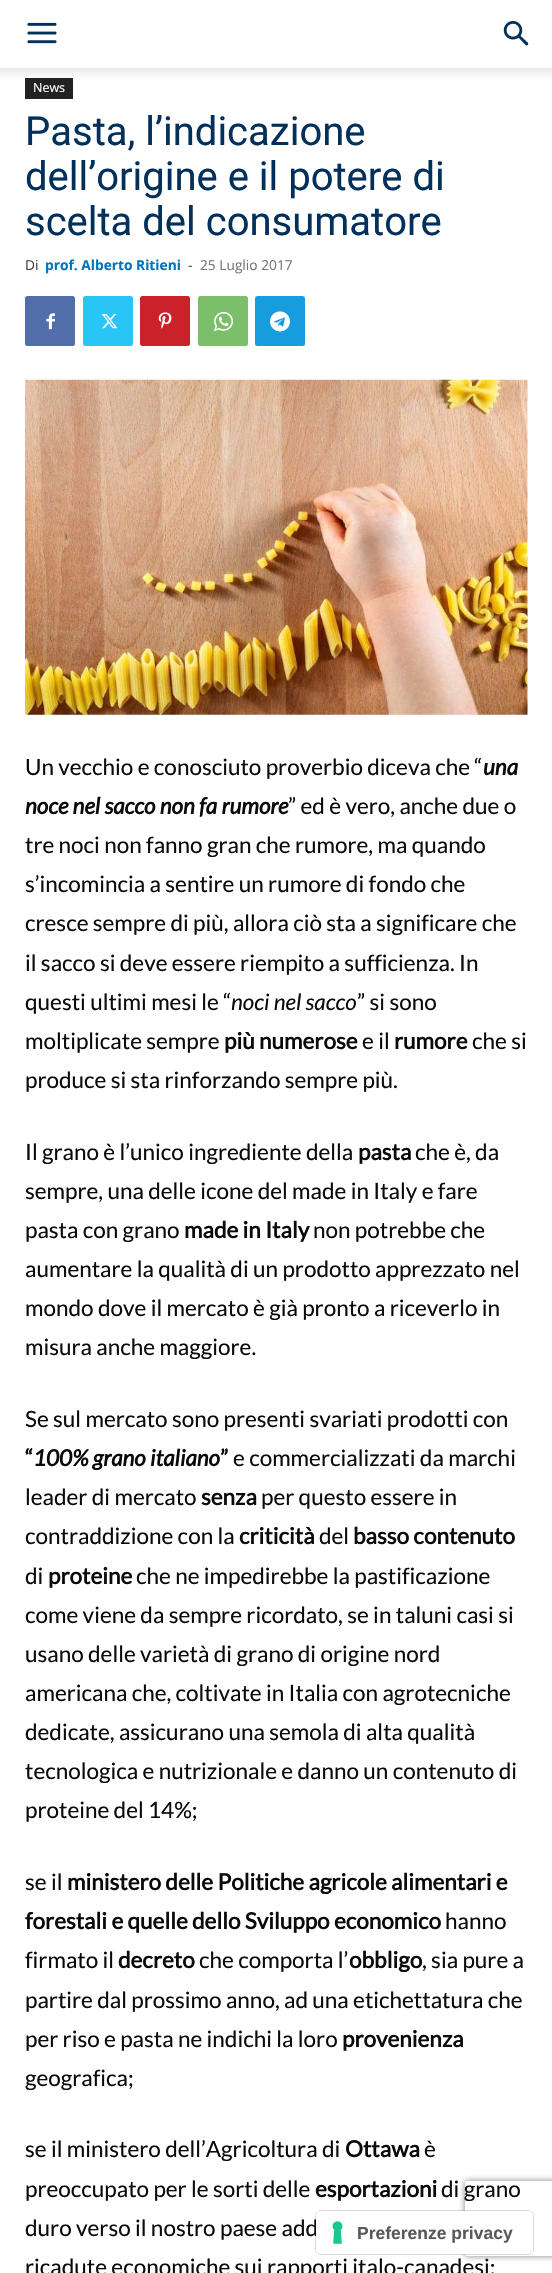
void draw(SkCanvas* canvas) {
	SkPaint paint;
	paint.setAntiAlias(true);
	auto svgPath = [&](const char* data, bool evenOdd = false) {
		SkPath result = *SkParsePath::FromSVGString(data);
		if (evenOdd) result.setFillType(SkPathFillType::kEvenOdd);
		return result;
	};
	canvas->clear(0xffffffff);
	canvas->drawImageRect(SkImages::DeferredFromEncodedData(SkData::MakeFromFileName("img1.png")), SkRect::MakeXYWH(27, 22, 30, 22), SkSamplingOptions());
	canvas->drawImageRect(SkImages::DeferredFromEncodedData(SkData::MakeFromFileName("img2.png")), SkRect::MakeXYWH(503, 21, 26, 25), SkSamplingOptions());
	canvas->drawImageRect(SkImages::DeferredFromEncodedData(SkData::MakeFromFileName("img3.png")), SkRect::MakeXYWH(0, 68, 552, 10), SkSamplingOptions());
	paint.setColor(0xff222222);
	canvas->drawRect(SkRect::MakeXYWH(25, 78, 48, 21), paint);
	SkFont f1(fontMgr->matchFamilyStyle("Open Sans", SkFontStyle::Normal()), 12.5);
	f1.setSubpixel(true);
	paint.setColor(0xffffffff);
	canvas->drawString("News", 33, 92, f1, paint);
	SkFont f2(fontMgr->matchFamilyStyle("Roboto", SkFontStyle::Normal()), 40);
	f2.setSubpixel(true);
	paint.setColor(0xff00305b);
	canvas->drawString("Pasta, l’indicazione", 25, 145, f2, paint);
	canvas->drawString("dell’origine e il potere di", 25, 190, f2, paint);
	canvas->drawString("scelta del consumatore", 25, 235, f2, paint);
	SkFont f3(fontMgr->matchFamilyStyle("Open Sans", SkFontStyle::Normal()), 13.75);
	f3.setSubpixel(true);
	paint.setColor(0xff444444);
	canvas->drawString("Di", 25, 270, f3, paint);
	SkFont f4(fontMgr->matchFamilyStyle("Open Sans", SkFontStyle::Bold()), 13.75);
	f4.setSubpixel(true);
	paint.setColor(0xff0075bc);
	canvas->drawString("prof. Alberto Ritieni", 45, 270, f4, paint);
	paint.setColor(0xff444444);
	canvas->drawString("-", 188, 270, f3, paint);
	paint.setColor(0xff767676);
	canvas->drawString("25 Luglio 2017", 200, 270, f3, paint);
	paint.setColor(0xff516eab);
	canvas->drawRoundRect(SkRect::MakeXYWH(25, 296, 50, 50), 2.5, 2.5, paint);
	canvas->drawImageRect(SkImages::DeferredFromEncodedData(SkData::MakeFromFileName("img4.png")), SkRect::MakeXYWH(46, 313, 9, 17), SkSamplingOptions());
	paint.setColor(0xff29c5f6);
	canvas->drawRoundRect(SkRect::MakeXYWH(83, 296, 50, 50), 2.5, 2.5, paint);
	canvas->drawImageRect(SkImages::DeferredFromEncodedData(SkData::MakeFromFileName("img5.png")), SkRect::MakeXYWH(101, 314, 17, 15), SkSamplingOptions());
	paint.setColor(0xffca212a);
	canvas->drawRoundRect(SkRect::MakeXYWH(140, 296, 50, 50), 2.5, 2.5, paint);
	canvas->drawImageRect(SkImages::DeferredFromEncodedData(SkData::MakeFromFileName("img6.png")), SkRect::MakeXYWH(158, 312, 14, 17), SkSamplingOptions());
	paint.setColor(0xff7bbf6a);
	canvas->drawRoundRect(SkRect::MakeXYWH(198, 296, 50, 50), 2.5, 2.5, paint);
	canvas->drawImageRect(SkImages::DeferredFromEncodedData(SkData::MakeFromFileName("img7.png")), SkRect::MakeXYWH(213, 311, 20, 21), SkSamplingOptions());
	paint.setColor(0xff179cde);
	canvas->drawRoundRect(SkRect::MakeXYWH(255, 296, 50, 50), 2.5, 2.5, paint);
	canvas->drawImageRect(SkImages::DeferredFromEncodedData(SkData::MakeFromFileName("img8.png")), SkRect::MakeXYWH(270, 311, 20, 21), SkSamplingOptions());
	canvas->drawImageRect(SkImages::DeferredFromEncodedData(SkData::MakeFromFileName("img9.png")), SkRect::MakeXYWH(25, 379, 503, 336), SkSamplingOptions());
	SkFont f5(fontMgr->matchFamilyStyle("Lato", SkFontStyle::Normal()), 22.5);
	f5.setSubpixel(true);
	paint.setColor(0xff0a0a0a);
	canvas->drawString("Un vecchio e conosciuto proverbio diceva che “", 25, 775, f5, paint);
	SkFont f6(fontMgr->matchFamilyStyle("Lato", SkFontStyle::BoldItalic()), 22.5);
	f6.setSubpixel(true);
	canvas->drawString("una", 483, 775, f6, paint);
	canvas->drawString("noce nel sacco non fa rumore", 25, 814, f6, paint);
	canvas->drawString("” ed è vero, anche due o", 288, 814, f5, paint);
	canvas->drawString("tre noci non fanno gran che rumore, ma quando", 25, 853, f5, paint);
	canvas->drawString("s’incomincia a sentire un rumore di fondo che", 25, 892, f5, paint);
	canvas->drawString("cresce sempre di più, allora ciò sta a significare che", 25, 931, f5, paint);
	canvas->drawString("il sacco si deve essere riempito a sufficienza. In", 25, 971, f5, paint);
	canvas->drawString("questi ultimi mesi le “", 25, 1010, f5, paint);
	SkFont f7(fontMgr->matchFamilyStyle("Lato", SkFontStyle::Italic()), 22.5);
	f7.setSubpixel(true);
	canvas->drawString("noci nel sacco", 231, 1010, f7, paint);
	canvas->drawString("” si sono", 357, 1010, f5, paint);
	canvas->drawString("moltiplicate sempre", 25, 1049, f5, paint);
	SkFont f8(fontMgr->matchFamilyStyle("Lato", SkFontStyle::Bold()), 22.5);
	f8.setSubpixel(true);
	canvas->drawString("più numerose", 224, 1049, f8, paint);
	canvas->drawString("e il", 362, 1049, f5, paint);
	canvas->drawString("rumore", 394, 1049, f8, paint);
	canvas->drawString("che si", 472, 1049, f5, paint);
	canvas->drawString("produce si sta rinforzando sempre più.", 25, 1088, f5, paint);
	canvas->drawString("Il grano è l’unico ingrediente della", 25, 1160, f5, paint);
	canvas->drawString("pasta", 358, 1160, f8, paint);
	canvas->drawString("che è, da", 415, 1160, f5, paint);
	canvas->drawString("sempre, una delle icone del made in Italy e fare", 25, 1199, f5, paint);
	canvas->drawString("pasta con grano", 25, 1238, f5, paint);
	canvas->drawString("made in Italy", 184, 1238, f8, paint);
	canvas->drawString("non potrebbe che", 313, 1238, f5, paint);
	canvas->drawString("aumentare la qualità di un prodotto apprezzato nel", 25, 1277, f5, paint);
	canvas->drawString("mondo dove il mercato è già pronto a riceverlo in", 25, 1316, f5, paint);
	canvas->drawString("misura anche maggiore.", 25, 1355, f5, paint);
	canvas->drawString("Se sul mercato sono presenti svariati prodotti con", 25, 1427, f5, paint);
	canvas->drawString("“", 25, 1466, f8, paint);
	canvas->drawString("100% grano italiano", 33, 1466, f6, paint);
	canvas->drawString("”", 220, 1466, f8, paint);
	canvas->drawString("e commercializzati da marchi", 233, 1466, f5, paint);
	canvas->drawString("leader di mercato", 25, 1505, f5, paint);
	canvas->drawString("senza", 201, 1505, f8, paint);
	canvas->drawString("per questo essere in", 261, 1505, f5, paint);
	canvas->drawString("contraddizione con la", 25, 1544, f5, paint);
	canvas->drawString("criticità", 239, 1544, f8, paint);
	canvas->drawString("del", 319, 1544, f5, paint);
	canvas->drawString("basso contenuto", 353, 1544, f8, paint);
	canvas->drawString("di", 25, 1584, f5, paint);
	canvas->drawString("proteine", 48, 1584, f8, paint);
	canvas->drawString("che ne impedirebbe la pastificazione", 136, 1584, f5, paint);
	canvas->drawString("come viene da sempre ricordato, se in taluni casi si", 25, 1623, f5, paint);
	canvas->drawString("usano delle varietà di grano di origine nord", 25, 1662, f5, paint);
	canvas->drawString("americana che, coltivate in Italia con agrotecniche", 25, 1701, f5, paint);
	canvas->drawString("dedicate, assicurano una semola di alta qualità", 25, 1740, f5, paint);
	canvas->drawString("tecnologica e nutrizionale e danno un contenuto di", 25, 1779, f5, paint);
	canvas->drawString("proteine del 14%;", 25, 1818, f5, paint);
	canvas->drawString("se il", 25, 1890, f5, paint);
	canvas->drawString("ministero delle Politiche agricole alimentari e", 67, 1890, f8, paint);
	canvas->drawString("forestali e quelle dello Sviluppo economico", 25, 1929, f8, paint);
	canvas->drawString("hanno", 445, 1929, f5, paint);
	canvas->drawString("firmato il", 25, 1968, f5, paint);
	canvas->drawString("decreto", 118, 1968, f8, paint);
	canvas->drawString("che comporta l’", 199, 1968, f5, paint);
	canvas->drawString("obbligo", 349, 1968, f8, paint);
	canvas->drawString(", sia pure a", 422, 1968, f5, paint);
	canvas->drawString("partire dal prossimo anno, ad una etichettatura che", 25, 2008, f5, paint);
	canvas->drawString("per riso e pasta ne indichi la loro", 25, 2047, f5, paint);
	canvas->drawString("provenienza", 342, 2047, f8, paint);
	canvas->drawString("geografica;", 25, 2086, f5, paint);
	canvas->drawString("se il ministero dell’Agricoltura di", 25, 2157, f5, paint);
	canvas->drawString("Ottawa", 345, 2157, f8, paint);
	canvas->drawString("è", 424, 2157, f5, paint);
	canvas->drawString("preoccupato per le sorti delle", 25, 2197, f5, paint);
	canvas->drawString("esportazioni", 315, 2197, f8, paint);
	canvas->drawString("di grano", 441, 2197, f5, paint);
	canvas->drawString("duro verso il nostro paese add", 25, 2236, f5, paint);
	canvas->drawString("ricadute economiche sui rapporti italo-canadesi;", 25, 2275, f5, paint);
	canvas->save();
	canvas->clipPath(svgPath("M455 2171H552V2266H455ZM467.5 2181H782.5C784 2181 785 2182 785 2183.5V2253.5C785 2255 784 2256 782.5 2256H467.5C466 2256 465 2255 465 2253.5V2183.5C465 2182 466 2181 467.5 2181Z", true), true);
	paint.setColor(0xff808080);
	paint.setMaskFilter(SkMaskFilter::MakeBlur(kNormal_SkBlurStyle, 3));
	canvas->drawRoundRect(SkRect::MakeXYWH(465, 2181, 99, 75), 2.5, 2.5, paint);
	paint.setMaskFilter(nullptr);
	canvas->restore();
	paint.setStroke(true);
	paint.setStrokeWidth(1);
	paint.setColor(0x26000000);
	canvas->drawRoundRect(SkRect::MakeXYWH(315.5, 2210.5, 218, 44), 5.5, 5.5, paint);
	paint.setStroke(false);
	paint.setColor(0xffffffff);
	canvas->drawRoundRect(SkRect::MakeXYWH(316, 2211, 217, 43), 5, 5, paint);
	canvas->drawImageRect(SkImages::DeferredFromEncodedData(SkData::MakeFromFileName("img10.png")), SkRect::MakeXYWH(332, 2221, 11, 23), SkSamplingOptions());
	SkFont f9(fontMgr->matchFamilyStyle("Liberation Sans", SkFontStyle::Bold()), 17.5);
	f9.setSubpixel(true);
	paint.setColor(0xff595959);
	canvas->drawString("Preferenze privacy", 357, 2239, f9, paint);
}
